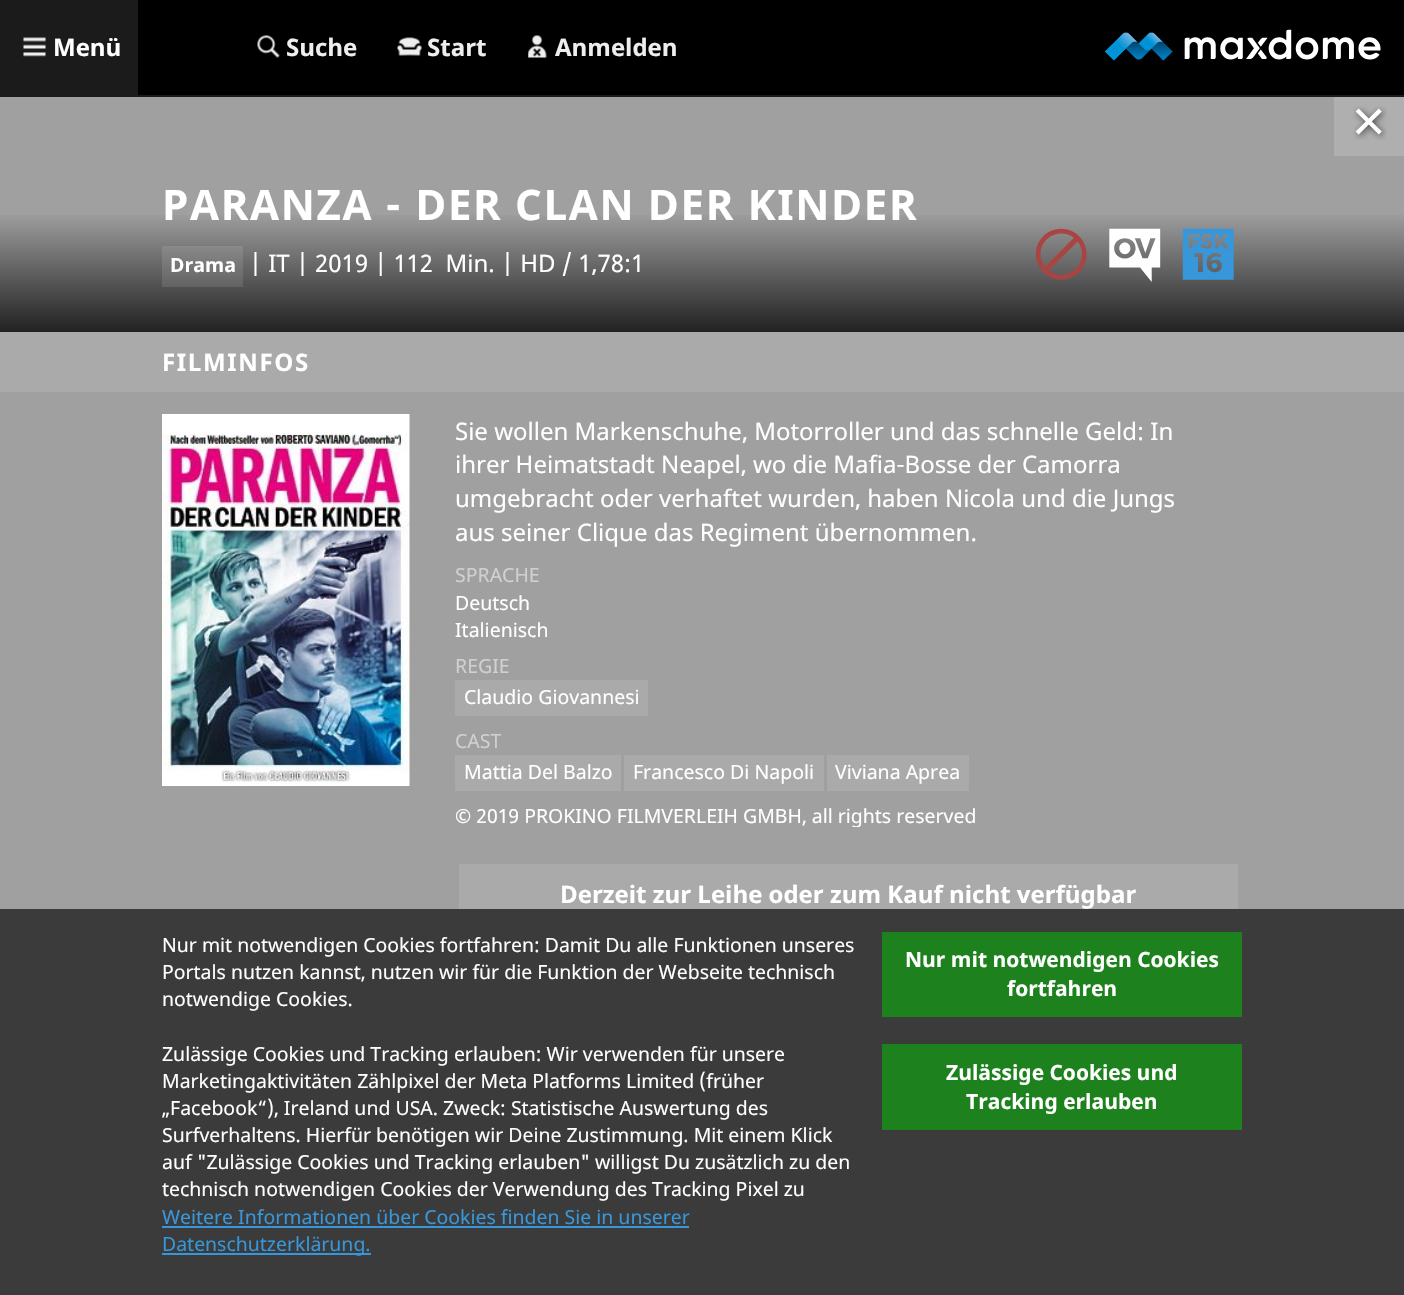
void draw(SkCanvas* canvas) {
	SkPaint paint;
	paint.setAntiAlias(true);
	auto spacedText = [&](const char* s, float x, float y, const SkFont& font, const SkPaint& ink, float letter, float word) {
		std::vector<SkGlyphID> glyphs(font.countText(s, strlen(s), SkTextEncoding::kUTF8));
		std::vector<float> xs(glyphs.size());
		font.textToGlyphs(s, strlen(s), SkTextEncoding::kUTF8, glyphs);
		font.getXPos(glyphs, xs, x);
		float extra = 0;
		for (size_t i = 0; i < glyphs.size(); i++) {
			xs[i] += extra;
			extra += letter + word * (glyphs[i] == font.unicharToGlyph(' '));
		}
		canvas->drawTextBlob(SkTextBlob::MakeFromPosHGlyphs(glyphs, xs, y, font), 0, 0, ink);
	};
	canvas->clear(0xffa0a0a0);
	paint.setColor(0xff000000);
	canvas->drawRect(SkRect::MakeXYWH(138, 0, 1266, 95), paint);
	paint.setColor(0xff1b1b1b);
	canvas->drawRect(SkRect::MakeXYWH(0, 95, 1404, 2), paint);
	canvas->drawRect(SkRect::MakeXYWH(0, 0, 138, 95), paint);
	canvas->drawImageRect(SkImages::DeferredFromEncodedData(SkData::MakeFromFileName("img1.png")), SkRect::MakeXYWH(23, 37, 23, 20), SkSamplingOptions());
	SkFont f1(fontMgr->matchFamilyStyle("Noto Sans", SkFontStyle::Bold()), 24);
	f1.setSubpixel(true);
	paint.setColor(0xffffffff);
	canvas->drawString("Menü", 53, 56, f1, paint);
	canvas->drawImageRect(SkImages::DeferredFromEncodedData(SkData::MakeFromFileName("img2.png")), SkRect::MakeXYWH(257, 35, 23, 23), SkSamplingOptions());
	paint.setColor(0xffeeeeee);
	canvas->drawString("Suche", 286, 56, f1, paint);
	canvas->drawImageRect(SkImages::DeferredFromEncodedData(SkData::MakeFromFileName("img3.png")), SkRect::MakeXYWH(397, 37, 25, 19), SkSamplingOptions());
	canvas->drawString("Start", 427, 56, f1, paint);
	canvas->drawImageRect(SkImages::DeferredFromEncodedData(SkData::MakeFromFileName("img4.png")), SkRect::MakeXYWH(528, 35, 19, 23), SkSamplingOptions());
	canvas->drawString("Anmelden", 555, 56, f1, paint);
	canvas->drawImageRect(SkImages::DeferredFromEncodedData(SkData::MakeFromFileName("img5.png")), SkRect::MakeXYWH(1104, 29, 277, 32), SkSamplingOptions());
	paint.setColor(0xffafafaf);
	canvas->drawRect(SkRect::MakeXYWH(1334, 97, 70, 59), paint);
	canvas->drawImageRect(SkImages::DeferredFromEncodedData(SkData::MakeFromFileName("img6.png")), SkRect::MakeXYWH(1353, 106, 34, 34), SkSamplingOptions());
	{
		const SkColor colors[] = {0x00000000, 0x00000000, 0xcc000000};
		const float stops[] = {0, 0.5, 1};
		const SkPoint ends[] = {{702, 90}, {702, 333}};
		paint.setShader(SkGradientShader::MakeLinear(ends, colors, stops, 3, SkTileMode::kClamp));
		paint.setAlpha(255);
	}
	canvas->drawRect(SkRect::MakeXYWH(0, 215, 1404, 117), paint);
	SkFont f2(fontMgr->matchFamilyStyle("Noto Sans", SkFontStyle::Bold()), 42);
	f2.setSubpixel(true);
	paint.setShader(nullptr);
	paint.setColor(0xffffffff);
	spacedText("PARANZA - DER CLAN DER KINDER", 162, 220, f2, paint, 1.65, 0);
	paint.setColor(0x1affffff);
	canvas->drawRect(SkRect::MakeXYWH(162, 246, 81, 41), paint);
	SkFont f3(fontMgr->matchFamilyStyle("Noto Sans", SkFontStyle::Bold()), 19.5);
	f3.setSubpixel(true);
	paint.setColor(0xffffffff);
	canvas->drawString("Drama", 170, 272, f3, paint);
	SkFont f4(fontMgr->matchFamilyStyle("Noto Sans", SkFontStyle::Normal()), 24);
	f4.setSubpixel(true);
	canvas->drawString("| IT | 2019 | 112  Min. | HD / 1,78:1", 249, 272, f4, paint);
	canvas->drawImageRect(SkImages::DeferredFromEncodedData(SkData::MakeFromFileName("img7.png")), SkRect::MakeXYWH(1035, 228, 52, 52), SkSamplingOptions());
	canvas->drawImageRect(SkImages::DeferredFromEncodedData(SkData::MakeFromFileName("img8.png")), SkRect::MakeXYWH(1109, 228, 52, 54), SkSamplingOptions());
	canvas->drawImageRect(SkImages::DeferredFromEncodedData(SkData::MakeFromFileName("img9.png")), SkRect::MakeXYWH(1182, 228, 52, 52), SkSamplingOptions());
	paint.setColor(0xffaaaaaa);
	canvas->drawRect(SkRect::MakeXYWH(0, 332, 1404, 60), paint);
	paint.setColor(0xffffffff);
	spacedText("FILMINFOS", 162, 371, f1, paint, 1.65, 0);
	canvas->drawImageRect(SkImages::DeferredFromEncodedData(SkData::MakeFromFileName("img10.png")), SkRect::MakeXYWH(162, 414, 248, 372), SkSamplingOptions());
	canvas->drawString("Sie wollen Markenschuhe, Motorroller und das schnelle Geld: In", 455, 440, f4, paint);
	canvas->drawString("ihrer Heimatstadt Neapel, wo die Mafia-Bosse der Camorra", 455, 473, f4, paint);
	canvas->drawString("umgebracht oder verhaftet wurden, haben Nicola und die Jungs", 455, 507, f4, paint);
	canvas->drawString("aus seiner Clique das Regiment übernommen.", 455, 541, f4, paint);
	SkFont f5(fontMgr->matchFamilyStyle("Noto Sans", SkFontStyle::Normal()), 19.5);
	f5.setSubpixel(true);
	paint.setColor(0xffd0d0d0);
	canvas->drawString("SPRACHE", 455, 582, f5, paint);
	paint.setColor(0xffffffff);
	canvas->drawString("Deutsch", 455, 610, f5, paint);
	canvas->drawString("Italienisch", 455, 637, f5, paint);
	paint.setColor(0xffd0d0d0);
	canvas->drawString("REGIE", 455, 673, f5, paint);
	paint.setColor(0xffaaaaaa);
	canvas->drawRect(SkRect::MakeXYWH(455, 680, 193, 36), paint);
	paint.setColor(0xffffffff);
	canvas->drawString("Claudio Giovannesi", 464, 704, f5, paint);
	paint.setColor(0xffd0d0d0);
	canvas->drawString("CAST", 455, 748, f5, paint);
	paint.setColor(0xffaaaaaa);
	canvas->drawRect(SkRect::MakeXYWH(455, 755, 166, 36), paint);
	paint.setColor(0xffffffff);
	canvas->drawString("Mattia Del Balzo", 464, 779, f5, paint);
	paint.setColor(0xffaaaaaa);
	canvas->drawRect(SkRect::MakeXYWH(624, 755, 200, 36), paint);
	paint.setColor(0xffffffff);
	canvas->drawString("Francesco Di Napoli", 633, 779, f5, paint);
	paint.setColor(0xffaaaaaa);
	canvas->drawRect(SkRect::MakeXYWH(827, 755, 142, 36), paint);
	paint.setColor(0xffffffff);
	canvas->drawString("Viviana Aprea", 835, 779, f5, paint);
	canvas->save();
	canvas->clipRect(SkRect::MakeXYWH(455, 806, 765, 21));
	SkFont f6(fontMgr->matchFamilyStyle("Noto Sans", SkFontStyle::Normal()), 19.45);
	f6.setSubpixel(true);
	canvas->drawString("© 2019 PROKINO FILMVERLEIH GMBH, all rights reserved", 455, 823, f6, paint);
	canvas->restore();
	paint.setColor(0xffaaaaaa);
	canvas->drawRect(SkRect::MakeXYWH(459, 864, 779, 45), paint);
	paint.setColor(0xffffffff);
	canvas->drawString("Derzeit zur Leihe oder zum Kauf nicht verfügbar", 560, 903, f1, paint);
	paint.setColor(0xff3b3b3b);
	canvas->drawRect(SkRect::MakeXYWH(0, 909, 1404, 386), paint);
	paint.setColor(0xffffffff);
	canvas->drawString("Nur mit notwendigen Cookies fortfahren: Damit Du alle Funktionen unseres", 162, 952, f6, paint);
	canvas->drawString("Portals nutzen kannst, nutzen wir für die Funktion der Webseite technisch", 162, 979, f6, paint);
	canvas->drawString("notwendige Cookies.", 162, 1006, f6, paint);
	canvas->drawString("Zulässige Cookies und Tracking erlauben: Wir verwenden für unsere", 162, 1061, f6, paint);
	canvas->drawString("Marketingaktivitäten Zählpixel der Meta Platforms Limited (früher", 162, 1088, f6, paint);
	canvas->drawString("„Facebook“), Ireland und USA. Zweck: Statistische Auswertung des", 162, 1115, f6, paint);
	canvas->drawString("Surfverhaltens. Hierfür benötigen wir Deine Zustimmung. Mit einem Klick", 162, 1142, f6, paint);
	canvas->drawString("auf \"Zulässige Cookies und Tracking erlauben\" willigst Du zusätzlich zu den", 162, 1169, f6, paint);
	canvas->drawString("technisch notwendigen Cookies der Verwendung des Tracking Pixel zu", 162, 1196, f6, paint);
	paint.setColor(0xff3896da);
	canvas->drawString("Weitere Informationen über Cookies finden Sie in unserer", 162, 1224, f6, paint);
	canvas->drawRect(SkRect::MakeXYWH(162, 1226, 527, 2), paint);
	canvas->drawRect(SkRect::MakeXYWH(162, 1253, 209, 2), paint);
	canvas->drawString("Datenschutzerklärung.", 162, 1251, f6, paint);
	paint.setColor(0xff1d821d);
	canvas->drawRect(SkRect::MakeXYWH(882, 932, 360, 85), paint);
	SkFont f7(fontMgr->matchFamilyStyle("Noto Sans", SkFontStyle::Bold()), 21);
	f7.setSubpixel(true);
	paint.setColor(0xffffffff);
	canvas->drawString("Nur mit notwendigen Cookies", 905, 967, f7, paint);
	canvas->drawString("fortfahren", 1007, 996, f7, paint);
	paint.setColor(0xff1d821d);
	canvas->drawRect(SkRect::MakeXYWH(882, 1044, 360, 86), paint);
	paint.setColor(0xffffffff);
	canvas->drawString("Zulässige Cookies und", 946, 1080, f7, paint);
	canvas->drawString("Tracking erlauben", 966, 1109, f7, paint);
}
